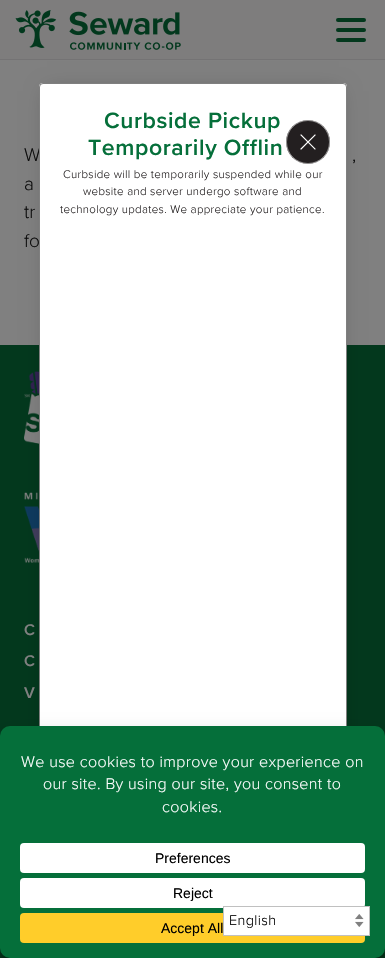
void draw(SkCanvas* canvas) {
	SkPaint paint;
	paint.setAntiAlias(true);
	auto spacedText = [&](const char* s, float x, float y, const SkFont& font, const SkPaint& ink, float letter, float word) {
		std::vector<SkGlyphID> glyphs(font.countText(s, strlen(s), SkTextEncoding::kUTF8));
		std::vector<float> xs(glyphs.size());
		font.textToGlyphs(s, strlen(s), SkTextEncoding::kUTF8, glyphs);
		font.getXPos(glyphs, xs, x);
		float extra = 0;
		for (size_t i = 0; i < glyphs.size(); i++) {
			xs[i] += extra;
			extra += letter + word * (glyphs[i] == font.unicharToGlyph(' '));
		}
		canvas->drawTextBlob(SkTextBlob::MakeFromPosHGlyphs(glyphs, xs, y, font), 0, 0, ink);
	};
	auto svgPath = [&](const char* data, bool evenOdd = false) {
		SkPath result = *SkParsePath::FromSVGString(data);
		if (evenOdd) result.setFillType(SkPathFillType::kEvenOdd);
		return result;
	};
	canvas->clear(0xff808080);
	paint.setColor(0xff03381d);
	canvas->drawRect(SkRect::MakeXYWH(0, 345, 385, 613), paint);
	canvas->drawImageRect(SkImages::DeferredFromEncodedData(SkData::MakeFromFileName("img2.png")), SkRect::MakeXYWH(24, 371, 15, 73), SkSamplingOptions());
	canvas->drawImageRect(SkImages::DeferredFromEncodedData(SkData::MakeFromFileName("img3.png")), SkRect::MakeXYWH(24, 492, 15, 71), SkSamplingOptions());
	paint.setColor(0x40000000);
	paint.setMaskFilter(SkMaskFilter::MakeBlur(kNormal_SkBlurStyle, 10));
	canvas->drawRect(SkRect::MakeXYWH(47, 91, 292, 798), paint);
	paint.setMaskFilter(nullptr);
	SkFont f1(fontMgr->matchFamilyStyle("Proxima Nova", SkFontStyle(300, SkFontStyle::kNormal_Width, SkFontStyle::kUpright_Slant)), 19);
	f1.setSubpixel(true);
	paint.setColor(0xff0d0d0d);
	canvas->drawString("W", 24, 161, f1, paint);
	canvas->drawString("fo", 24, 247, f1, paint);
	paint.setColor(0xffffffff);
	canvas->drawRoundRect(SkRect::MakeXYWH(39, 83, 308, 814), 4, 4, paint);
	paint.setStroke(true);
	paint.setStrokeWidth(1);
	paint.setColor(0x80000000);
	canvas->drawRoundRect(SkRect::MakeXYWH(39.5, 83.5, 307, 813), 3.5, 3.5, paint);
	SkFont f2(fontMgr->matchFamilyStyle("Proxima Nova", SkFontStyle(600, SkFontStyle::kNormal_Width, SkFontStyle::kUpright_Slant)), 23);
	f2.setSubpixel(true);
	paint.setStroke(false);
	paint.setColor(0xff056f3a);
	spacedText("Curbside Pickup", 104, 128, f2, paint, 0.6, 0);
	spacedText("Temporarily Offlin", 88, 155, f2, paint, 0.6, 0);
	SkFont f3(fontMgr->matchFamilyStyle("Proxima Nova", SkFontStyle(300, SkFontStyle::kNormal_Width, SkFontStyle::kUpright_Slant)), 11.5);
	f3.setSubpixel(true);
	paint.setColor(0xff231f20);
	spacedText("Curbside will be temporarily suspended while our", 63, 178, f3, paint, 0.3, 0);
	spacedText("website and server undergo software and", 83, 195, f3, paint, 0.3, 0);
	spacedText("technology updates. We appreciate your patience.", 60, 213, f3, paint, 0.3, 0);
	canvas->drawCircle(308, 142, 22, paint);
	paint.setStroke(true);
	paint.setStrokeWidth(1.1);
	paint.setStrokeCap(SkPaint::kSquare_Cap);
	paint.setColor(0xffffffff);
	canvas->drawPath(svgPath("M315 135L301 149M301 135L315 149"), paint);
	paint.setStrokeWidth(1);
	paint.setStrokeCap(SkPaint::kButt_Cap);
	paint.setColor(0x80ffffff);
	canvas->drawCircle(308, 142, 21.5, paint);
	paint.setStroke(false);
	paint.setColor(0xff7e7d7d);
	canvas->drawRect(SkRect::MakeXYWH(0, 0, 385, 59), paint);
	paint.setColor(0xff747374);
	canvas->drawRect(SkRect::MakeXYWH(0, 59, 385, 1), paint);
	canvas->drawImageRect(SkImages::DeferredFromEncodedData(SkData::MakeFromFileName("img1.png")), SkRect::MakeXYWH(15, 10, 166, 40), SkSamplingOptions());
	paint.setColor(0xff03381d);
	canvas->drawRoundRect(SkRect::MakeXYWH(336, 38, 30, 4), 2, 2, paint);
	canvas->drawRoundRect(SkRect::MakeXYWH(336, 18, 30, 4), 2, 2, paint);
	canvas->drawRoundRect(SkRect::MakeXYWH(336, 28, 30, 4), 2, 2, paint);
	paint.setColor(0xff0d0d0d);
	canvas->drawString(",", 352, 161, f1, paint);
	canvas->drawString("a", 24, 190, f1, paint);
	canvas->drawString("tr", 24, 218, f1, paint);
	SkFont f4(fontMgr->matchFamilyStyle("Proxima Nova", SkFontStyle(600, SkFontStyle::kNormal_Width, SkFontStyle::kUpright_Slant)), 16);
	f4.setSubpixel(true);
	paint.setColor(0xff808080);
	canvas->drawString("C", 24, 635, f4, paint);
	canvas->drawString("C", 24, 666, f4, paint);
	canvas->drawString("V", 24, 698, f4, paint);
	paint.setColor(0x3b000000);
	paint.setMaskFilter(SkMaskFilter::MakeBlur(kNormal_SkBlurStyle, 3));
	canvas->drawRoundRect(SkRect::MakeXYWH(0, 732, 385, 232), 10, 10, paint);
	paint.setMaskFilter(nullptr);
	paint.setColor(0x30000000);
	paint.setMaskFilter(SkMaskFilter::MakeBlur(kNormal_SkBlurStyle, 10));
	canvas->drawRoundRect(SkRect::MakeXYWH(0, 736, 385, 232), 10, 10, paint);
	paint.setMaskFilter(nullptr);
	paint.setColor(0xff056f3a);
	canvas->drawRoundRect(SkRect::MakeXYWH(0, 726, 385, 232), 10, 10, paint);
	SkFont f5(fontMgr->matchFamilyStyle("Proxima Nova", SkFontStyle(300, SkFontStyle::kNormal_Width, SkFontStyle::kUpright_Slant)), 16);
	f5.setSubpixel(true);
	paint.setColor(0xffffffff);
	spacedText("We use cookies to improve your experience on", 21, 767, f5, paint, 0.35, 0);
	spacedText("our site. By using our site, you consent to", 43, 789, f5, paint, 0.35, 0);
	spacedText("cookies.", 162, 812, f5, paint, 0.35, 0);
	canvas->drawRoundRect(SkRect::MakeXYWH(20, 843, 345, 30), 4, 4, paint);
	SkFont f6(fontMgr->matchFamilyStyle("Liberation Sans", SkFontStyle::Normal()), 14);
	f6.setSubpixel(true);
	paint.setColor(0xff000000);
	canvas->drawString("Preferences", 155, 863, f6, paint);
	paint.setColor(0xffffffff);
	canvas->drawRoundRect(SkRect::MakeXYWH(20, 878, 345, 30), 4, 4, paint);
	paint.setColor(0xff000000);
	canvas->drawString("Reject", 173, 898, f6, paint);
	paint.setColor(0xffffcd2a);
	canvas->drawRoundRect(SkRect::MakeXYWH(20, 913, 345, 30), 4, 4, paint);
	paint.setColor(0xff000000);
	canvas->drawString("Accept All", 161, 933, f6, paint);
	paint.setColor(0xffffffff);
	canvas->drawRect(SkRect::MakeXYWH(224, 907, 145, 28), paint);
	canvas->drawImageRect(SkImages::DeferredFromEncodedData(SkData::MakeFromFileName("img4.png")), SkRect::MakeXYWH(355, 914, 9, 13), SkSamplingOptions());
	paint.setStroke(true);
	paint.setColor(0xffc0c0c0);
	canvas->drawRect(SkRect::MakeXYWH(223.5, 906.5, 146, 29), paint);
	SkFont f7(fontMgr->matchFamilyStyle("Proxima Nova", SkFontStyle(300, SkFontStyle::kNormal_Width, SkFontStyle::kUpright_Slant)), 14.5);
	f7.setSubpixel(true);
	paint.setStroke(false);
	paint.setColor(0xff000000);
	spacedText("English", 229, 925, f7, paint, 0.35, 0);
}
